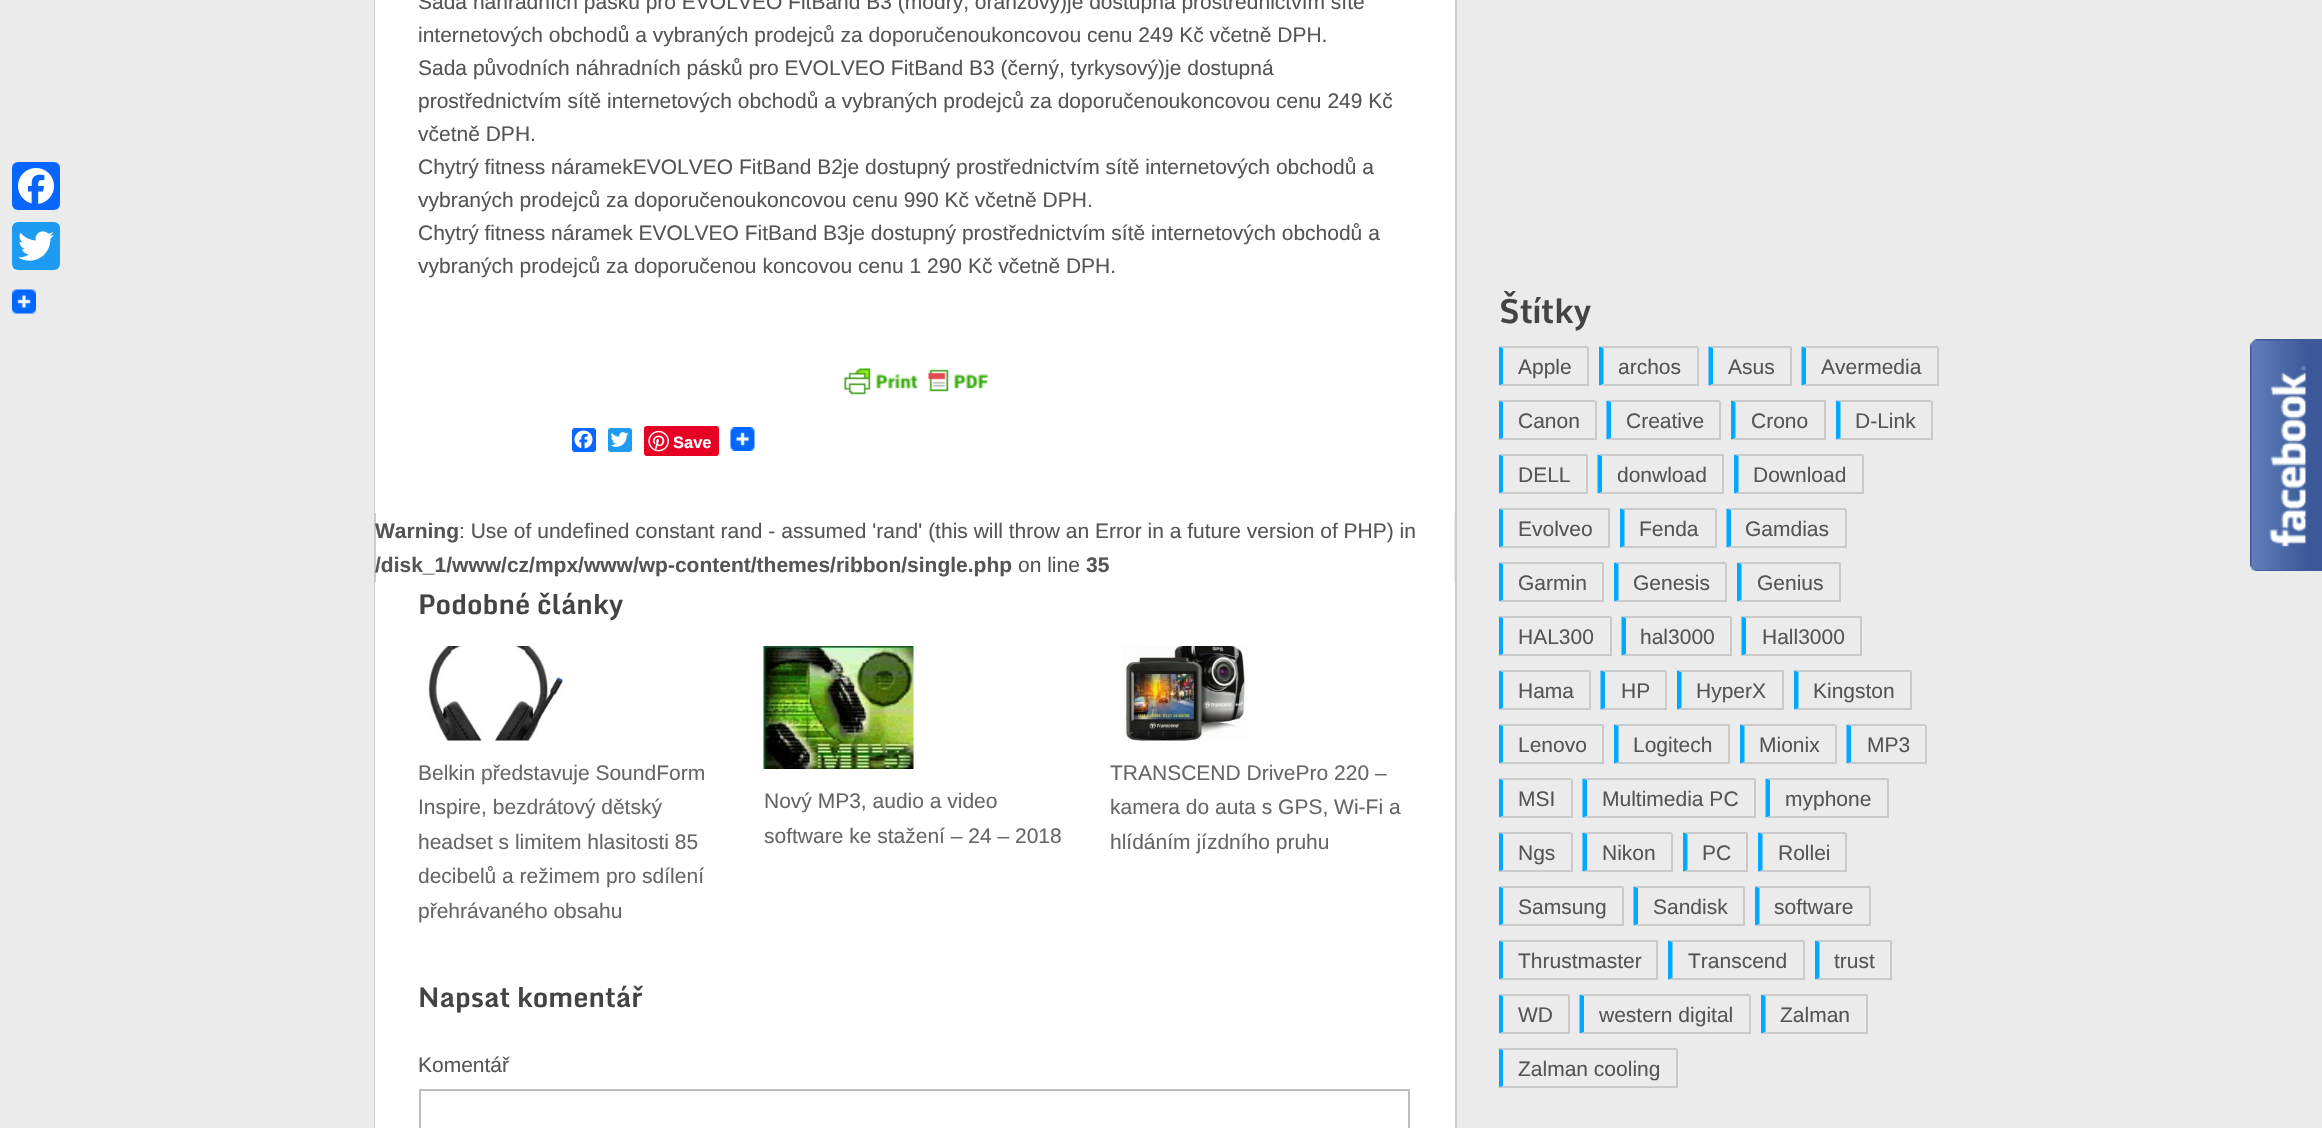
void draw(SkCanvas* canvas) {
	SkPaint paint;
	paint.setAntiAlias(true);
	auto svgPath = [&](const char* data, bool evenOdd = false) {
		SkPath result = *SkParsePath::FromSVGString(data);
		if (evenOdd) result.setFillType(SkPathFillType::kEvenOdd);
		return result;
	};
	canvas->clear(0xffebebeb);
	paint.setColor(0xff0866ff);
	canvas->drawRoundRect(SkRect::MakeXYWH(12, 162, 48, 48), 6, 6, paint);
	canvas->drawImageRect(SkImages::DeferredFromEncodedData(SkData::MakeFromFileName("img1.png")), SkRect::MakeXYWH(18, 168, 36, 36), SkSamplingOptions());
	paint.setColor(0xff1d9bf0);
	canvas->drawRoundRect(SkRect::MakeXYWH(12, 222, 48, 48), 6, 6, paint);
	canvas->drawImageRect(SkImages::DeferredFromEncodedData(SkData::MakeFromFileName("img2.png")), SkRect::MakeXYWH(18, 231, 36, 30), SkSamplingOptions());
	canvas->drawImageRect(SkImages::DeferredFromEncodedData(SkData::MakeFromFileName("img3.png")), SkRect::MakeXYWH(12, 289, 24, 25), SkSamplingOptions());
	paint.setColor(0xffffffff);
	canvas->drawRect(SkRect::MakeXYWH(376, 513, 1078, 69), paint);
	paint.setStroke(true);
	paint.setStrokeWidth(2);
	paint.setColor(0xffcccccc);
	canvas->drawRect(SkRect::MakeXYWH(375, -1, 1081, 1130), paint);
	paint.setStroke(false);
	paint.setColor(0xffffffff);
	canvas->drawRect(SkRect::MakeXYWH(375, 0, 1080, 513), paint);
	SkFont f1(fontMgr->matchFamilyStyle("Liberation Sans", SkFontStyle::Normal()), 21);
	f1.setSubpixel(true);
	paint.setColor(0xff555555);
	canvas->drawString("Sada náhradních pásků pro EVOLVEO FitBand B3 (modrý, oranžový)je dostupná prostřednictvím sítě", 418, 9, f1, paint);
	canvas->drawString("internetových obchodů a vybraných prodejců za doporučenoukoncovou cenu 249 Kč včetně DPH.", 418, 42, f1, paint);
	canvas->drawString("Sada původních náhradních pásků pro EVOLVEO FitBand B3 (černý, tyrkysový)je dostupná", 418, 75, f1, paint);
	canvas->drawString("prostřednictvím sítě internetových obchodů a vybraných prodejců za doporučenoukoncovou cenu 249 Kč", 418, 108, f1, paint);
	canvas->drawString("včetně DPH.", 418, 141, f1, paint);
	canvas->drawString("Chytrý fitness náramekEVOLVEO FitBand B2je dostupný prostřednictvím sítě internetových obchodů a", 418, 174, f1, paint);
	canvas->drawString("vybraných prodejců za doporučenoukoncovou cenu 990 Kč včetně DPH.", 418, 207, f1, paint);
	canvas->drawString("Chytrý fitness náramek EVOLVEO FitBand B3je dostupný prostřednictvím sítě internetových obchodů a", 418, 240, f1, paint);
	canvas->drawString("vybraných prodejců za doporučenou koncovou cenu 1 290 Kč včetně DPH.", 418, 273, f1, paint);
	canvas->drawImageRect(SkImages::DeferredFromEncodedData(SkData::MakeFromFileName("img4.png")), SkRect::MakeXYWH(844, 368, 145, 27), SkSamplingOptions());
	paint.setColor(0xff0866ff);
	canvas->drawRoundRect(SkRect::MakeXYWH(572, 428, 24, 24), 3, 3, paint);
	canvas->drawImageRect(SkImages::DeferredFromEncodedData(SkData::MakeFromFileName("img5.png")), SkRect::MakeXYWH(574, 430, 19, 19), SkSamplingOptions());
	paint.setColor(0xff1d9bf0);
	canvas->drawRoundRect(SkRect::MakeXYWH(608, 428, 24, 24), 3, 3, paint);
	canvas->drawImageRect(SkImages::DeferredFromEncodedData(SkData::MakeFromFileName("img6.png")), SkRect::MakeXYWH(610, 432, 19, 15), SkSamplingOptions());
	paint.setColor(0xffe60023);
	canvas->drawRoundRect(SkRect::MakeXYWH(644, 426, 75, 30), 3, 3, paint);
	canvas->drawImageRect(SkImages::DeferredFromEncodedData(SkData::MakeFromFileName("img7.png")), SkRect::MakeXYWH(648, 431, 21, 21), SkSamplingOptions());
	SkFont f2(fontMgr->matchFamilyStyle("Liberation Sans", SkFontStyle::Bold()), 16.5);
	f2.setSubpixel(true);
	paint.setColor(0xffffffff);
	canvas->drawString("Save", 673, 448, f2, paint);
	canvas->drawImageRect(SkImages::DeferredFromEncodedData(SkData::MakeFromFileName("img8.png")), SkRect::MakeXYWH(730, 427, 25, 24), SkSamplingOptions());
	SkFont f3(fontMgr->matchFamilyStyle("Liberation Sans", SkFontStyle::Bold()), 21);
	f3.setSubpixel(true);
	paint.setColor(0xff555555);
	canvas->drawString("Warning", 375, 538, f3, paint);
	canvas->drawString(": Use of undefined constant rand - assumed 'rand' (this will throw an Error in a future version of PHP) in", 459, 538, f1, paint);
	canvas->drawString("/disk_1/www/cz/mpx/www/wp-content/themes/ribbon/single.php", 375, 572, f3, paint);
	canvas->drawString("on line", 1018, 572, f1, paint);
	canvas->drawString("35", 1086, 572, f3, paint);
	paint.setColor(0xffffffff);
	canvas->drawRect(SkRect::MakeXYWH(375, 582, 1080, 546), paint);
	SkFont f4(fontMgr->matchFamilyStyle("Monda", SkFontStyle::Bold()), 27);
	f4.setSubpixel(true);
	paint.setColor(0xff444444);
	canvas->drawString("Podobné články", 418, 614, f4, paint);
	canvas->drawImageRect(SkImages::DeferredFromEncodedData(SkData::MakeFromFileName("img9.png")), SkRect::MakeXYWH(425, 646, 139, 95), SkSamplingOptions());
	paint.setColor(0xff666666);
	canvas->drawString("Belkin představuje SoundForm", 418, 780, f1, paint);
	canvas->drawString("Inspire, bezdrátový dětský", 418, 814, f1, paint);
	canvas->drawString("headset s limitem hlasitosti 85", 418, 849, f1, paint);
	canvas->drawString("decibelů a režimem pro sdílení", 418, 883, f1, paint);
	canvas->drawString("přehrávaného obsahu", 418, 918, f1, paint);
	canvas->drawImageRect(SkImages::DeferredFromEncodedData(SkData::MakeFromFileName("img10.png")), SkRect::MakeXYWH(763, 646, 151, 123), SkSamplingOptions());
	canvas->drawString("Nový MP3, audio a video", 764, 808, f1, paint);
	canvas->drawString("software ke stažení – 24 – 2018", 764, 843, f1, paint);
	canvas->drawImageRect(SkImages::DeferredFromEncodedData(SkData::MakeFromFileName("img11.png")), SkRect::MakeXYWH(1122, 646, 126, 95), SkSamplingOptions());
	canvas->drawString("TRANSCEND DrivePro 220 –", 1110, 780, f1, paint);
	canvas->drawString("kamera do auta s GPS, Wi-Fi a", 1110, 814, f1, paint);
	canvas->drawString("hlídáním jízdního pruhu", 1110, 849, f1, paint);
	paint.setColor(0xff444444);
	canvas->drawString("Napsat komentář", 418, 1007, f4, paint);
	paint.setColor(0xff555555);
	canvas->drawString("Komentář", 418, 1072, f1, paint);
	paint.setStroke(true);
	paint.setColor(0xffbebebe);
	canvas->drawRect(SkRect::MakeXYWH(420, 1090, 989, 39), paint);
	SkFont f5(fontMgr->matchFamilyStyle("Monda", SkFontStyle::Bold()), 33);
	f5.setSubpixel(true);
	paint.setStroke(false);
	paint.setColor(0xff444444);
	canvas->drawString("Štítky", 1499, 323, f5, paint);
	paint.setColor(0xffcacaca);
	canvas->drawPath(svgPath("M1498 346H1588L1587 348H1503Z"), paint);
	canvas->drawRect(SkRect::MakeXYWH(1587, 347, 2, 39), paint);
	canvas->drawPath(svgPath("M1588 386H1498L1503 384H1587Z"), paint);
	canvas->save();
	canvas->clipRect(SkRect::MakeXYWH(1499, 290, 450, 813));
	paint.setColor(0xff00a8ff);
	canvas->drawPath(svgPath("M1498.5 385.5V346.5L1503 348V384Z"), paint);
	canvas->restore();
	paint.setColor(0xff555555);
	canvas->drawString("Apple", 1518, 374, f1, paint);
	paint.setColor(0xffcacaca);
	canvas->drawPath(svgPath("M1599 346H1698L1696 348H1604Z"), paint);
	canvas->drawRect(SkRect::MakeXYWH(1697, 347, 2, 39), paint);
	canvas->drawPath(svgPath("M1698 386H1599L1604 384H1696Z"), paint);
	paint.setColor(0xff00a8ff);
	canvas->drawPath(svgPath("M1599 385.5V346.5L1603.5 348V384Z"), paint);
	paint.setColor(0xff555555);
	canvas->drawString("archos", 1618, 374, f1, paint);
	paint.setColor(0xffcacaca);
	canvas->drawPath(svgPath("M1708 346H1791L1790 348H1713Z"), paint);
	canvas->drawRect(SkRect::MakeXYWH(1790, 347, 2, 39), paint);
	canvas->drawPath(svgPath("M1791 386H1708L1713 384H1790Z"), paint);
	paint.setColor(0xff00a8ff);
	canvas->drawPath(svgPath("M1708.5 385.5V346.5L1713 348V384Z"), paint);
	paint.setColor(0xff555555);
	canvas->drawString("Asus", 1728, 374, f1, paint);
	paint.setColor(0xffcacaca);
	canvas->drawPath(svgPath("M1802 346H1938L1936 348H1806Z"), paint);
	canvas->drawRect(SkRect::MakeXYWH(1937, 347, 2, 39), paint);
	canvas->drawPath(svgPath("M1938 386H1802L1806 384H1936Z"), paint);
	paint.setColor(0xff00a8ff);
	canvas->drawPath(svgPath("M1801.5 385.5V346.5L1806 348V384Z"), paint);
	paint.setColor(0xff555555);
	canvas->drawString("Avermedia", 1821, 374, f1, paint);
	paint.setColor(0xffcacaca);
	canvas->drawPath(svgPath("M1498 400H1596L1594 402H1503Z"), paint);
	canvas->drawRect(SkRect::MakeXYWH(1595, 401, 2, 39), paint);
	canvas->drawPath(svgPath("M1596 440H1498L1503 438H1594Z"), paint);
	canvas->save();
	canvas->clipRect(SkRect::MakeXYWH(1499, 290, 450, 813));
	paint.setColor(0xff00a8ff);
	canvas->drawPath(svgPath("M1498.5 439.5V400.5L1503 402V438Z"), paint);
	canvas->restore();
	paint.setColor(0xff555555);
	canvas->drawString("Canon", 1518, 428, f1, paint);
	paint.setColor(0xffcacaca);
	canvas->drawPath(svgPath("M1606 400H1720L1719 402H1611Z"), paint);
	canvas->drawRect(SkRect::MakeXYWH(1719, 401, 2, 39), paint);
	canvas->drawPath(svgPath("M1720 440H1606L1611 438H1719Z"), paint);
	paint.setColor(0xff00a8ff);
	canvas->drawPath(svgPath("M1606.5 439.5V400.5L1611 402V438Z"), paint);
	paint.setColor(0xff555555);
	canvas->drawString("Creative", 1626, 428, f1, paint);
	paint.setColor(0xffcacaca);
	canvas->drawPath(svgPath("M1731 400H1826L1824 402H1736Z"), paint);
	canvas->drawRect(SkRect::MakeXYWH(1824, 401, 2, 39), paint);
	canvas->drawPath(svgPath("M1826 440H1731L1736 438H1824Z"), paint);
	paint.setColor(0xff00a8ff);
	canvas->drawPath(svgPath("M1731 439.5V400.5L1735.5 402V438Z"), paint);
	paint.setColor(0xff555555);
	canvas->drawString("Crono", 1751, 428, f1, paint);
	paint.setColor(0xffcacaca);
	canvas->drawPath(svgPath("M1836 400H1932L1930 402H1840Z"), paint);
	canvas->drawRect(SkRect::MakeXYWH(1931, 401, 2, 39), paint);
	canvas->drawPath(svgPath("M1932 440H1836L1840 438H1930Z"), paint);
	paint.setColor(0xff00a8ff);
	canvas->drawPath(svgPath("M1836 439.5V400.5L1840.5 402V438Z"), paint);
	paint.setColor(0xff555555);
	canvas->drawString("D-Link", 1855, 428, f1, paint);
	paint.setColor(0xffcacaca);
	canvas->drawPath(svgPath("M1498 454H1587L1586 456H1503Z"), paint);
	canvas->drawRect(SkRect::MakeXYWH(1586, 455, 2, 39), paint);
	canvas->drawPath(svgPath("M1587 494H1498L1503 492H1586Z"), paint);
	canvas->save();
	canvas->clipRect(SkRect::MakeXYWH(1499, 290, 450, 813));
	paint.setColor(0xff00a8ff);
	canvas->drawPath(svgPath("M1498.5 493.5V454.5L1503 456V492Z"), paint);
	canvas->restore();
	paint.setColor(0xff555555);
	canvas->drawString("DELL", 1518, 482, f1, paint);
	paint.setColor(0xffcacaca);
	canvas->drawPath(svgPath("M1598 454H1724L1722 456H1602Z"), paint);
	canvas->drawRect(SkRect::MakeXYWH(1722, 455, 2, 39), paint);
	canvas->drawPath(svgPath("M1724 494H1598L1602 492H1722Z"), paint);
	paint.setColor(0xff00a8ff);
	canvas->drawPath(svgPath("M1597.5 493.5V454.5L1602 456V492Z"), paint);
	paint.setColor(0xff555555);
	canvas->drawString("donwload", 1617, 482, f1, paint);
	paint.setColor(0xffcacaca);
	canvas->drawPath(svgPath("M1734 454H1863L1862 456H1738Z"), paint);
	canvas->drawRect(SkRect::MakeXYWH(1862, 455, 2, 39), paint);
	canvas->drawPath(svgPath("M1863 494H1734L1738 492H1862Z"), paint);
	paint.setColor(0xff00a8ff);
	canvas->drawPath(svgPath("M1734 493.5V454.5L1738.5 456V492Z"), paint);
	paint.setColor(0xff555555);
	canvas->drawString("Download", 1753, 482, f1, paint);
	paint.setColor(0xffcacaca);
	canvas->drawPath(svgPath("M1498 508H1610L1608 510H1503Z"), paint);
	canvas->drawRect(SkRect::MakeXYWH(1608, 509, 2, 39), paint);
	canvas->drawPath(svgPath("M1610 548H1498L1503 546H1608Z"), paint);
	canvas->save();
	canvas->clipRect(SkRect::MakeXYWH(1499, 290, 450, 813));
	paint.setColor(0xff00a8ff);
	canvas->drawPath(svgPath("M1498.5 547.5V508.5L1503 510V546Z"), paint);
	canvas->restore();
	paint.setColor(0xff555555);
	canvas->drawString("Evolveo", 1518, 536, f1, paint);
	paint.setColor(0xffcacaca);
	canvas->drawPath(svgPath("M1620 508H1716L1714 510H1624Z"), paint);
	canvas->drawRect(SkRect::MakeXYWH(1715, 509, 2, 39), paint);
	canvas->drawPath(svgPath("M1716 548H1620L1624 546H1714Z"), paint);
	paint.setColor(0xff00a8ff);
	canvas->drawPath(svgPath("M1620 547.5V508.5L1624.5 510V546Z"), paint);
	paint.setColor(0xff555555);
	canvas->drawString("Fenda", 1639, 536, f1, paint);
	paint.setColor(0xffcacaca);
	canvas->drawPath(svgPath("M1726 508H1846L1845 510H1731Z"), paint);
	canvas->drawRect(SkRect::MakeXYWH(1845, 509, 2, 39), paint);
	canvas->drawPath(svgPath("M1846 548H1726L1731 546H1845Z"), paint);
	paint.setColor(0xff00a8ff);
	canvas->drawPath(svgPath("M1726.5 547.5V508.5L1731 510V546Z"), paint);
	paint.setColor(0xff555555);
	canvas->drawString("Gamdias", 1745, 536, f1, paint);
	paint.setColor(0xffcacaca);
	canvas->drawPath(svgPath("M1498 562H1604L1602 564H1503Z"), paint);
	canvas->drawRect(SkRect::MakeXYWH(1602, 563, 2, 39), paint);
	canvas->drawPath(svgPath("M1604 602H1498L1503 600H1602Z"), paint);
	canvas->save();
	canvas->clipRect(SkRect::MakeXYWH(1499, 290, 450, 813));
	paint.setColor(0xff00a8ff);
	canvas->drawPath(svgPath("M1498.5 601.5V562.5L1503 564V600Z"), paint);
	canvas->restore();
	paint.setColor(0xff555555);
	canvas->drawString("Garmin", 1518, 590, f1, paint);
	paint.setColor(0xffcacaca);
	canvas->drawPath(svgPath("M1614 562H1726L1725 564H1618Z"), paint);
	canvas->drawRect(SkRect::MakeXYWH(1725, 563, 2, 39), paint);
	canvas->drawPath(svgPath("M1726 602H1614L1618 600H1725Z"), paint);
	paint.setColor(0xff00a8ff);
	canvas->drawPath(svgPath("M1614 601.5V562.5L1618.5 564V600Z"), paint);
	paint.setColor(0xff555555);
	canvas->drawString("Genesis", 1633, 590, f1, paint);
	paint.setColor(0xffcacaca);
	canvas->drawPath(svgPath("M1737 562H1840L1839 564H1742Z"), paint);
	canvas->drawRect(SkRect::MakeXYWH(1839, 563, 2, 39), paint);
	canvas->drawPath(svgPath("M1840 602H1737L1742 600H1839Z"), paint);
	paint.setColor(0xff00a8ff);
	canvas->drawPath(svgPath("M1737 601.5V562.5L1741.5 564V600Z"), paint);
	paint.setColor(0xff555555);
	canvas->drawString("Genius", 1757, 590, f1, paint);
	paint.setColor(0xffcacaca);
	canvas->drawPath(svgPath("M1498 616H1611L1610 618H1503Z"), paint);
	canvas->drawRect(SkRect::MakeXYWH(1610, 617, 2, 39), paint);
	canvas->drawPath(svgPath("M1611 656H1498L1503 654H1610Z"), paint);
	canvas->save();
	canvas->clipRect(SkRect::MakeXYWH(1499, 290, 450, 813));
	paint.setColor(0xff00a8ff);
	canvas->drawPath(svgPath("M1498.5 655.5V616.5L1503 618V654Z"), paint);
	canvas->restore();
	paint.setColor(0xff555555);
	canvas->drawString("HAL300", 1518, 644, f1, paint);
	paint.setColor(0xffcacaca);
	canvas->drawPath(svgPath("M1622 616H1731L1730 618H1626Z"), paint);
	canvas->drawRect(SkRect::MakeXYWH(1730, 617, 2, 39), paint);
	canvas->drawPath(svgPath("M1731 656H1622L1626 654H1730Z"), paint);
	paint.setColor(0xff00a8ff);
	canvas->drawPath(svgPath("M1621.5 655.5V616.5L1626 618V654Z"), paint);
	paint.setColor(0xff555555);
	canvas->drawString("hal3000", 1640, 644, f1, paint);
	paint.setColor(0xffcacaca);
	canvas->drawPath(svgPath("M1742 616H1862L1860 618H1746Z"), paint);
	canvas->drawRect(SkRect::MakeXYWH(1860, 617, 2, 39), paint);
	canvas->drawPath(svgPath("M1862 656H1742L1746 654H1860Z"), paint);
	paint.setColor(0xff00a8ff);
	canvas->drawPath(svgPath("M1741.5 655.5V616.5L1746 618V654Z"), paint);
	paint.setColor(0xff555555);
	canvas->drawString("Hall3000", 1762, 644, f1, paint);
	paint.setColor(0xffcacaca);
	canvas->drawPath(svgPath("M1498 670H1590L1588 672H1503Z"), paint);
	canvas->drawRect(SkRect::MakeXYWH(1589, 671, 2, 39), paint);
	canvas->drawPath(svgPath("M1590 710H1498L1503 708H1588Z"), paint);
	canvas->save();
	canvas->clipRect(SkRect::MakeXYWH(1499, 290, 450, 813));
	paint.setColor(0xff00a8ff);
	canvas->drawPath(svgPath("M1498.5 709.5V670.5L1503 672V708Z"), paint);
	canvas->restore();
	paint.setColor(0xff555555);
	canvas->drawString("Hama", 1518, 698, f1, paint);
	paint.setColor(0xffcacaca);
	canvas->drawPath(svgPath("M1600 670H1666L1665 672H1605Z"), paint);
	canvas->drawRect(SkRect::MakeXYWH(1665, 671, 2, 39), paint);
	canvas->drawPath(svgPath("M1666 710H1600L1605 708H1665Z"), paint);
	paint.setColor(0xff00a8ff);
	canvas->drawPath(svgPath("M1600.5 709.5V670.5L1605 672V708Z"), paint);
	paint.setColor(0xff555555);
	canvas->drawString("HP", 1621, 698, f1, paint);
	paint.setColor(0xffcacaca);
	canvas->drawPath(svgPath("M1677 670H1784L1782 672H1682Z"), paint);
	canvas->drawRect(SkRect::MakeXYWH(1782, 671, 2, 39), paint);
	canvas->drawPath(svgPath("M1784 710H1677L1682 708H1782Z"), paint);
	paint.setColor(0xff00a8ff);
	canvas->drawPath(svgPath("M1677 709.5V670.5L1681.5 672V708Z"), paint);
	paint.setColor(0xff555555);
	canvas->drawString("HyperX", 1696, 698, f1, paint);
	paint.setColor(0xffcacaca);
	canvas->drawPath(svgPath("M1794 670H1911L1910 672H1798Z"), paint);
	canvas->drawRect(SkRect::MakeXYWH(1910, 671, 2, 39), paint);
	canvas->drawPath(svgPath("M1911 710H1794L1798 708H1910Z"), paint);
	paint.setColor(0xff00a8ff);
	canvas->drawPath(svgPath("M1794 709.5V670.5L1798.5 672V708Z"), paint);
	paint.setColor(0xff555555);
	canvas->drawString("Kingston", 1813, 698, f1, paint);
	paint.setColor(0xffcacaca);
	canvas->drawPath(svgPath("M1498 724H1604L1602 726H1503Z"), paint);
	canvas->drawRect(SkRect::MakeXYWH(1602, 725, 2, 39), paint);
	canvas->drawPath(svgPath("M1604 764H1498L1503 762H1602Z"), paint);
	canvas->save();
	canvas->clipRect(SkRect::MakeXYWH(1499, 290, 450, 813));
	paint.setColor(0xff00a8ff);
	canvas->drawPath(svgPath("M1498.5 763.5V724.5L1503 726V762Z"), paint);
	canvas->restore();
	paint.setColor(0xff555555);
	canvas->drawString("Lenovo", 1518, 752, f1, paint);
	paint.setColor(0xffcacaca);
	canvas->drawPath(svgPath("M1614 724H1730L1728 726H1618Z"), paint);
	canvas->drawRect(SkRect::MakeXYWH(1728, 725, 2, 39), paint);
	canvas->drawPath(svgPath("M1730 764H1614L1618 762H1728Z"), paint);
	paint.setColor(0xff00a8ff);
	canvas->drawPath(svgPath("M1614 763.5V724.5L1618.5 726V762Z"), paint);
	paint.setColor(0xff555555);
	canvas->drawString("Logitech", 1633, 752, f1, paint);
	paint.setColor(0xffcacaca);
	canvas->drawPath(svgPath("M1740 724H1836L1834 726H1744Z"), paint);
	canvas->drawRect(SkRect::MakeXYWH(1835, 725, 2, 39), paint);
	canvas->drawPath(svgPath("M1836 764H1740L1744 762H1834Z"), paint);
	paint.setColor(0xff00a8ff);
	canvas->drawPath(svgPath("M1740 763.5V724.5L1744.5 726V762Z"), paint);
	paint.setColor(0xff555555);
	canvas->drawString("Mionix", 1759, 752, f1, paint);
	paint.setColor(0xffcacaca);
	canvas->drawPath(svgPath("M1846 724H1926L1924 726H1851Z"), paint);
	canvas->drawRect(SkRect::MakeXYWH(1925, 725, 2, 39), paint);
	canvas->drawPath(svgPath("M1926 764H1846L1851 762H1924Z"), paint);
	paint.setColor(0xff00a8ff);
	canvas->drawPath(svgPath("M1846.5 763.5V724.5L1851 726V762Z"), paint);
	paint.setColor(0xff555555);
	canvas->drawString("MP3", 1867, 752, f1, paint);
	paint.setColor(0xffcacaca);
	canvas->drawPath(svgPath("M1498 778H1572L1570 780H1503Z"), paint);
	canvas->drawRect(SkRect::MakeXYWH(1571, 779, 2, 39), paint);
	canvas->drawPath(svgPath("M1572 818H1498L1503 816H1570Z"), paint);
	canvas->save();
	canvas->clipRect(SkRect::MakeXYWH(1499, 290, 450, 813));
	paint.setColor(0xff00a8ff);
	canvas->drawPath(svgPath("M1498.5 817.5V778.5L1503 780V816Z"), paint);
	canvas->restore();
	paint.setColor(0xff555555);
	canvas->drawString("MSI", 1518, 806, f1, paint);
	paint.setColor(0xffcacaca);
	canvas->drawPath(svgPath("M1582 778H1755L1754 780H1587Z"), paint);
	canvas->drawRect(SkRect::MakeXYWH(1754, 779, 2, 39), paint);
	canvas->drawPath(svgPath("M1755 818H1582L1587 816H1754Z"), paint);
	paint.setColor(0xff00a8ff);
	canvas->drawPath(svgPath("M1582.5 817.5V778.5L1587 780V816Z"), paint);
	paint.setColor(0xff555555);
	canvas->drawString("Multimedia PC", 1602, 806, f1, paint);
	paint.setColor(0xffcacaca);
	canvas->drawPath(svgPath("M1766 778H1888L1887 780H1770Z"), paint);
	canvas->drawRect(SkRect::MakeXYWH(1887, 779, 2, 39), paint);
	canvas->drawPath(svgPath("M1888 818H1766L1770 816H1887Z"), paint);
	paint.setColor(0xff00a8ff);
	canvas->drawPath(svgPath("M1765.5 817.5V778.5L1770 780V816Z"), paint);
	paint.setColor(0xff555555);
	canvas->drawString("myphone", 1785, 806, f1, paint);
	paint.setColor(0xffcacaca);
	canvas->drawPath(svgPath("M1498 832H1572L1570 834H1503Z"), paint);
	canvas->drawRect(SkRect::MakeXYWH(1571, 833, 2, 39), paint);
	canvas->drawPath(svgPath("M1572 872H1498L1503 870H1570Z"), paint);
	canvas->save();
	canvas->clipRect(SkRect::MakeXYWH(1499, 290, 450, 813));
	paint.setColor(0xff00a8ff);
	canvas->drawPath(svgPath("M1498.5 871.5V832.5L1503 834V870Z"), paint);
	canvas->restore();
	paint.setColor(0xff555555);
	canvas->drawString("Ngs", 1518, 860, f1, paint);
	paint.setColor(0xffcacaca);
	canvas->drawPath(svgPath("M1582 832H1672L1671 834H1587Z"), paint);
	canvas->drawRect(SkRect::MakeXYWH(1671, 833, 2, 39), paint);
	canvas->drawPath(svgPath("M1672 872H1582L1587 870H1671Z"), paint);
	paint.setColor(0xff00a8ff);
	canvas->drawPath(svgPath("M1582.5 871.5V832.5L1587 834V870Z"), paint);
	paint.setColor(0xff555555);
	canvas->drawString("Nikon", 1602, 860, f1, paint);
	paint.setColor(0xffcacaca);
	canvas->drawPath(svgPath("M1683 832H1748L1746 834H1688Z"), paint);
	canvas->drawRect(SkRect::MakeXYWH(1746, 833, 2, 39), paint);
	canvas->drawPath(svgPath("M1748 872H1683L1688 870H1746Z"), paint);
	paint.setColor(0xff00a8ff);
	canvas->drawPath(svgPath("M1683 871.5V832.5L1687.5 834V870Z"), paint);
	paint.setColor(0xff555555);
	canvas->drawString("PC", 1702, 860, f1, paint);
	paint.setColor(0xffcacaca);
	canvas->drawPath(svgPath("M1758 832H1846L1845 834H1762Z"), paint);
	canvas->drawRect(SkRect::MakeXYWH(1845, 833, 2, 39), paint);
	canvas->drawPath(svgPath("M1846 872H1758L1762 870H1845Z"), paint);
	paint.setColor(0xff00a8ff);
	canvas->drawPath(svgPath("M1758 871.5V832.5L1762.5 834V870Z"), paint);
	paint.setColor(0xff555555);
	canvas->drawString("Rollei", 1778, 860, f1, paint);
	paint.setColor(0xffcacaca);
	canvas->drawPath(svgPath("M1498 886H1623L1622 888H1503Z"), paint);
	canvas->drawRect(SkRect::MakeXYWH(1622, 887, 2, 39), paint);
	canvas->drawPath(svgPath("M1623 926H1498L1503 924H1622Z"), paint);
	canvas->save();
	canvas->clipRect(SkRect::MakeXYWH(1499, 290, 450, 813));
	paint.setColor(0xff00a8ff);
	canvas->drawPath(svgPath("M1498.5 925.5V886.5L1503 888V924Z"), paint);
	canvas->restore();
	paint.setColor(0xff555555);
	canvas->drawString("Samsung", 1518, 914, f1, paint);
	paint.setColor(0xffcacaca);
	canvas->drawPath(svgPath("M1634 886H1744L1743 888H1638Z"), paint);
	canvas->drawRect(SkRect::MakeXYWH(1743, 887, 2, 39), paint);
	canvas->drawPath(svgPath("M1744 926H1634L1638 924H1743Z"), paint);
	paint.setColor(0xff00a8ff);
	canvas->drawPath(svgPath("M1633.5 925.5V886.5L1638 888V924Z"), paint);
	paint.setColor(0xff555555);
	canvas->drawString("Sandisk", 1653, 914, f1, paint);
	paint.setColor(0xffcacaca);
	canvas->drawPath(svgPath("M1755 886H1870L1869 888H1760Z"), paint);
	canvas->drawRect(SkRect::MakeXYWH(1869, 887, 2, 39), paint);
	canvas->drawPath(svgPath("M1870 926H1755L1760 924H1869Z"), paint);
	paint.setColor(0xff00a8ff);
	canvas->drawPath(svgPath("M1755 925.5V886.5L1759.5 888V924Z"), paint);
	paint.setColor(0xff555555);
	canvas->drawString("software", 1774, 914, f1, paint);
	paint.setColor(0xffcacaca);
	canvas->drawPath(svgPath("M1498 940H1658L1656 942H1503Z"), paint);
	canvas->drawRect(SkRect::MakeXYWH(1656, 941, 2, 39), paint);
	canvas->drawPath(svgPath("M1658 980H1498L1503 978H1656Z"), paint);
	canvas->save();
	canvas->clipRect(SkRect::MakeXYWH(1499, 290, 450, 813));
	paint.setColor(0xff00a8ff);
	canvas->drawPath(svgPath("M1498.5 979.5V940.5L1503 942V978Z"), paint);
	canvas->restore();
	paint.setColor(0xff555555);
	canvas->drawString("Thrustmaster", 1518, 968, f1, paint);
	paint.setColor(0xffcacaca);
	canvas->drawPath(svgPath("M1668 940H1804L1803 942H1672Z"), paint);
	canvas->drawRect(SkRect::MakeXYWH(1803, 941, 2, 39), paint);
	canvas->drawPath(svgPath("M1804 980H1668L1672 978H1803Z"), paint);
	paint.setColor(0xff00a8ff);
	canvas->drawPath(svgPath("M1668 979.5V940.5L1672.5 942V978Z"), paint);
	paint.setColor(0xff555555);
	canvas->drawString("Transcend", 1688, 968, f1, paint);
	paint.setColor(0xffcacaca);
	canvas->drawPath(svgPath("M1815 940H1892L1890 942H1820Z"), paint);
	canvas->drawRect(SkRect::MakeXYWH(1890, 941, 2, 39), paint);
	canvas->drawPath(svgPath("M1892 980H1815L1820 978H1890Z"), paint);
	paint.setColor(0xff00a8ff);
	canvas->drawPath(svgPath("M1815 979.5V940.5L1819.5 942V978Z"), paint);
	paint.setColor(0xff555555);
	canvas->drawString("trust", 1834, 968, f1, paint);
	paint.setColor(0xffcacaca);
	canvas->drawPath(svgPath("M1498 994H1569L1568 996H1503Z"), paint);
	canvas->drawRect(SkRect::MakeXYWH(1568, 995, 2, 39), paint);
	canvas->drawPath(svgPath("M1569 1034H1498L1503 1032H1568Z"), paint);
	canvas->save();
	canvas->clipRect(SkRect::MakeXYWH(1499, 290, 450, 813));
	paint.setColor(0xff00a8ff);
	canvas->drawPath(svgPath("M1498.5 1033.5V994.5L1503 996V1032Z"), paint);
	canvas->restore();
	paint.setColor(0xff555555);
	canvas->drawString("WD", 1518, 1022, f1, paint);
	paint.setColor(0xffcacaca);
	canvas->drawPath(svgPath("M1580 994H1750L1749 996H1584Z"), paint);
	canvas->drawRect(SkRect::MakeXYWH(1749, 995, 2, 39), paint);
	canvas->drawPath(svgPath("M1750 1034H1580L1584 1032H1749Z"), paint);
	paint.setColor(0xff00a8ff);
	canvas->drawPath(svgPath("M1579.5 1033.5V994.5L1584 996V1032Z"), paint);
	paint.setColor(0xff555555);
	canvas->drawString("western digital", 1599, 1022, f1, paint);
	paint.setColor(0xffcacaca);
	canvas->drawPath(svgPath("M1761 994H1868L1866 996H1766Z"), paint);
	canvas->drawRect(SkRect::MakeXYWH(1866, 995, 2, 39), paint);
	canvas->drawPath(svgPath("M1868 1034H1761L1766 1032H1866Z"), paint);
	paint.setColor(0xff00a8ff);
	canvas->drawPath(svgPath("M1761 1033.5V994.5L1765.5 996V1032Z"), paint);
	paint.setColor(0xff555555);
	canvas->drawString("Zalman", 1780, 1022, f1, paint);
	paint.setColor(0xffcacaca);
	canvas->drawPath(svgPath("M1498 1048H1677L1676 1050H1503Z"), paint);
	canvas->drawRect(SkRect::MakeXYWH(1676, 1049, 2, 39), paint);
	canvas->drawPath(svgPath("M1677 1088H1498L1503 1086H1676Z"), paint);
	canvas->save();
	canvas->clipRect(SkRect::MakeXYWH(1499, 290, 450, 813));
	paint.setColor(0xff00a8ff);
	canvas->drawPath(svgPath("M1498.5 1087.5V1048.5L1503 1050V1086Z"), paint);
	canvas->restore();
	paint.setColor(0xff555555);
	canvas->drawString("Zalman cooling", 1518, 1076, f1, paint);
	canvas->drawImageRect(SkImages::DeferredFromEncodedData(SkData::MakeFromFileName("img12.png")), SkRect::MakeXYWH(2250, 339, 72, 232), SkSamplingOptions());
}
